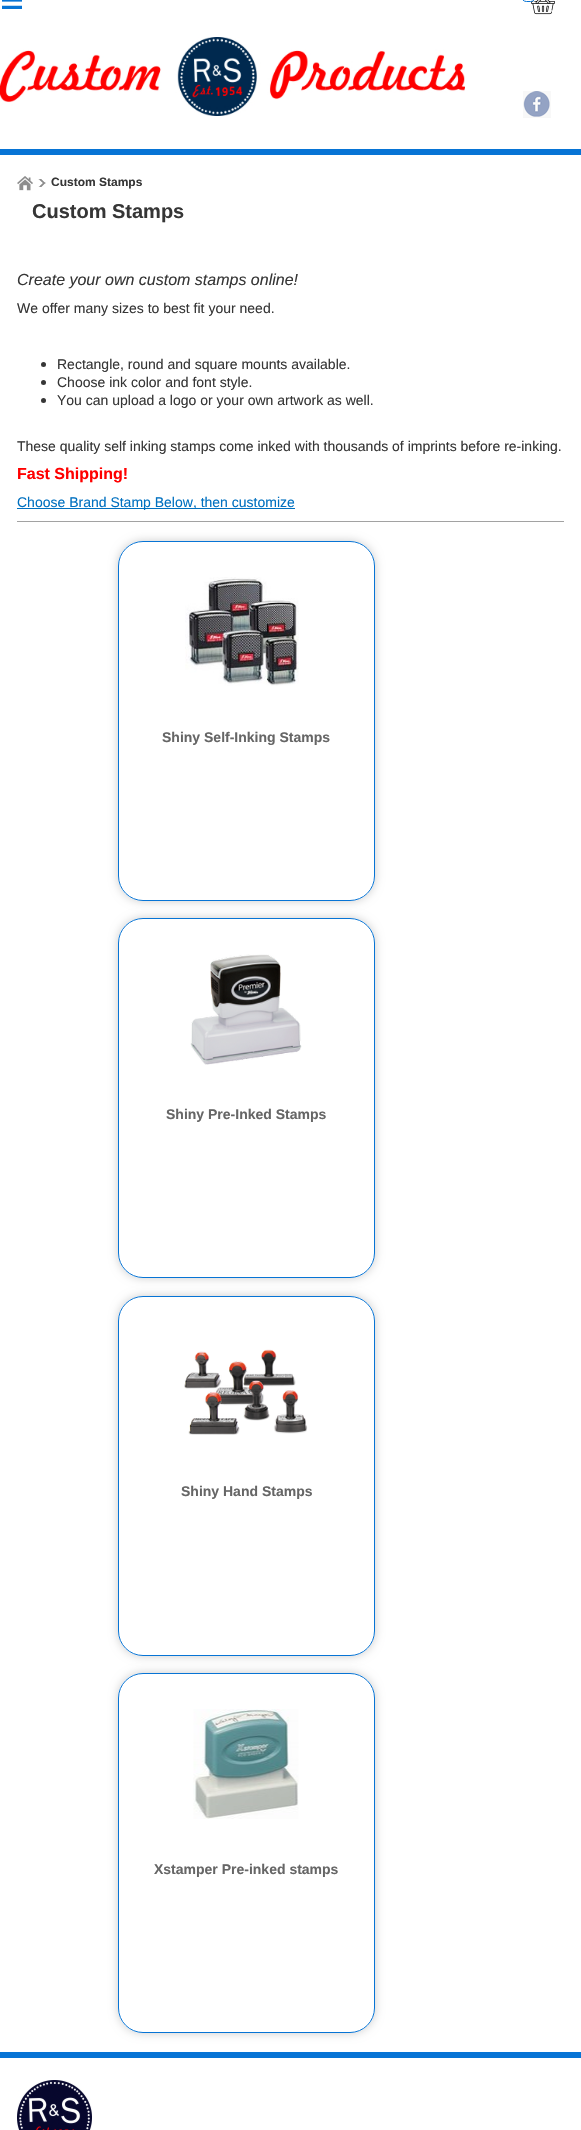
void draw(SkCanvas* canvas) {
	SkPaint paint;
	paint.setAntiAlias(true);
	auto svgPath = [&](const char* data, bool evenOdd = false) {
		SkPath result = *SkParsePath::FromSVGString(data);
		if (evenOdd) result.setFillType(SkPathFillType::kEvenOdd);
		return result;
	};
	canvas->clear(0xffffffff);
	canvas->drawImageRect(SkImages::DeferredFromEncodedData(SkData::MakeFromFileName("img1.png")), SkRect::MakeXYWH(2, 0, 20, 9), SkSamplingOptions());
	canvas->drawImageRect(SkImages::DeferredFromEncodedData(SkData::MakeFromFileName("img2.png")), SkRect::MakeXYWH(531, 0, 24, 15), SkSamplingOptions());
	paint.setColor(0xffffffff);
	canvas->drawRoundRect(SkRect::MakeXYWH(521.5, -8.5, 14, 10), 7, 7, paint);
	paint.setStroke(true);
	paint.setStrokeWidth(1);
	paint.setColor(0xff0774d5);
	canvas->drawRoundRect(SkRect::MakeXYWH(521.5, -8.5, 14, 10), 7, 7, paint);
	paint.setStroke(false);
	canvas->drawRect(SkRect::MakeXYWH(0, 149, 581, 6), paint);
	canvas->drawImageRect(SkImages::DeferredFromEncodedData(SkData::MakeFromFileName("img3.png")), SkRect::MakeXYWH(0, 37, 465, 79), SkSamplingOptions());
	canvas->drawImageRect(SkImages::DeferredFromEncodedData(SkData::MakeFromFileName("img4.png")), SkRect::MakeXYWH(523, 91, 28, 27), SkSamplingOptions());
	canvas->drawImageRect(SkImages::DeferredFromEncodedData(SkData::MakeFromFileName("img5.png")), SkRect::MakeXYWH(17, 176, 16, 15), SkSamplingOptions());
	canvas->drawImageRect(SkImages::DeferredFromEncodedData(SkData::MakeFromFileName("img6.png")), SkRect::MakeXYWH(38, 179, 8, 8), SkSamplingOptions());
	SkFont f1(fontMgr->matchFamilyStyle("Liberation Sans", SkFontStyle::Bold()), 12);
	f1.setSubpixel(true);
	paint.setColor(0xff363636);
	canvas->drawString("Custom Stamps", 51, 186, f1, paint);
	SkFont f2(fontMgr->matchFamilyStyle("Liberation Sans", SkFontStyle::Bold()), 20);
	f2.setSubpixel(true);
	canvas->drawString("Custom Stamps", 32, 218, f2, paint);
	SkFont f3(fontMgr->matchFamilyStyle("Liberation Sans", SkFontStyle::Italic()), 16);
	f3.setSubpixel(true);
	canvas->drawString("Create your own custom stamps online!", 17, 285, f3, paint);
	SkFont f4(fontMgr->matchFamilyStyle("Liberation Sans", SkFontStyle::Normal()), 14);
	f4.setSubpixel(true);
	canvas->drawString("We offer many sizes to best fit your need.", 17, 313, f4, paint);
	canvas->drawCircle(43.5, 364.5, 2.5, paint);
	canvas->drawString("Rectangle, round and square mounts available.", 57, 369, f4, paint);
	canvas->drawCircle(43.5, 382.5, 2.5, paint);
	canvas->drawString("Choose ink color and font style.", 57, 387, f4, paint);
	canvas->drawCircle(43.5, 400.5, 2.5, paint);
	canvas->drawString("You can upload a logo or your own artwork as well.", 57, 405, f4, paint);
	canvas->drawString("These quality self inking stamps come inked with thousands of imprints before re-inking.", 17, 451, f4, paint);
	SkFont f5(fontMgr->matchFamilyStyle("Liberation Sans", SkFontStyle::Bold()), 16);
	f5.setSubpixel(true);
	paint.setColor(0xffff0000);
	canvas->drawString("Fast Shipping!", 17, 479, f5, paint);
	paint.setColor(0xff0070c0);
	canvas->drawRect(SkRect::MakeXYWH(17, 508, 278, 1), paint);
	canvas->drawString("Choose Brand Stamp Below, then customize", 17, 507, f4, paint);
	paint.setColor(0xffa2a2a2);
	canvas->drawRect(SkRect::MakeXYWH(17, 521, 547, 1), paint);
	canvas->save();
	canvas->clipPath(svgPath("M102 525H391V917H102ZM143 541H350C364 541 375 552 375 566V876C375 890 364 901 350 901H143C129 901 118 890 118 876V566C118 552 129 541 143 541Z", true), true);
	paint.setColor(0xffcccccc);
	paint.setMaskFilter(SkMaskFilter::MakeBlur(kNormal_SkBlurStyle, 5));
	canvas->drawRoundRect(SkRect::MakeXYWH(118, 541, 257, 360), 25, 25, paint);
	paint.setMaskFilter(nullptr);
	canvas->restore();
	paint.setStroke(true);
	paint.setColor(0xff0774d5);
	canvas->drawRoundRect(SkRect::MakeXYWH(118.5, 541.5, 256, 359), 24.5, 24.5, paint);
	canvas->drawImageRect(SkImages::DeferredFromEncodedData(SkData::MakeFromFileName("img7.png")), SkRect::MakeXYWH(185, 577, 114, 109), SkSamplingOptions());
	SkFont f6(fontMgr->matchFamilyStyle("Liberation Sans", SkFontStyle::Bold()), 14);
	f6.setSubpixel(true);
	paint.setStroke(false);
	paint.setColor(0xff666666);
	canvas->drawString("Shiny Self-Inking Stamps", 162, 742, f6, paint);
	canvas->save();
	canvas->clipPath(svgPath("M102 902H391V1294H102ZM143 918H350C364 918 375 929 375 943V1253C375 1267 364 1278 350 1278H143C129 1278 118 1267 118 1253V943C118 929 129 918 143 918Z", true), true);
	paint.setColor(0xffcccccc);
	paint.setMaskFilter(SkMaskFilter::MakeBlur(kNormal_SkBlurStyle, 5));
	canvas->drawRoundRect(SkRect::MakeXYWH(118, 918, 257, 360), 25, 25, paint);
	paint.setMaskFilter(nullptr);
	canvas->restore();
	paint.setStroke(true);
	paint.setColor(0xff0774d5);
	canvas->drawRoundRect(SkRect::MakeXYWH(118.5, 918.5, 256, 359), 24.5, 24.5, paint);
	canvas->drawImageRect(SkImages::DeferredFromEncodedData(SkData::MakeFromFileName("img8.png")), SkRect::MakeXYWH(190, 954, 112, 111), SkSamplingOptions());
	paint.setStroke(false);
	paint.setColor(0xff666666);
	canvas->drawString("Shiny Pre-Inked Stamps", 166, 1119, f6, paint);
	canvas->save();
	canvas->clipPath(svgPath("M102 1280H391V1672H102ZM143 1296H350C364 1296 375 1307 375 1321V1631C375 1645 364 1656 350 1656H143C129 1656 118 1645 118 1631V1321C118 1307 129 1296 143 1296Z", true), true);
	paint.setColor(0xffcccccc);
	paint.setMaskFilter(SkMaskFilter::MakeBlur(kNormal_SkBlurStyle, 5));
	canvas->drawRoundRect(SkRect::MakeXYWH(118, 1296, 257, 360), 25, 25, paint);
	paint.setMaskFilter(nullptr);
	canvas->restore();
	paint.setStroke(true);
	paint.setColor(0xff0774d5);
	canvas->drawRoundRect(SkRect::MakeXYWH(118.5, 1296.5, 256, 359), 24.5, 24.5, paint);
	canvas->drawImageRect(SkImages::DeferredFromEncodedData(SkData::MakeFromFileName("img9.png")), SkRect::MakeXYWH(184, 1349, 124, 86), SkSamplingOptions());
	paint.setStroke(false);
	paint.setColor(0xff666666);
	canvas->drawString("Shiny Hand Stamps", 181, 1496, f6, paint);
	canvas->save();
	canvas->clipPath(svgPath("M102 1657H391V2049H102ZM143 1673H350C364 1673 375 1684 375 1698V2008C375 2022 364 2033 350 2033H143C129 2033 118 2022 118 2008V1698C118 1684 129 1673 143 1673Z", true), true);
	paint.setColor(0xffcccccc);
	paint.setMaskFilter(SkMaskFilter::MakeBlur(kNormal_SkBlurStyle, 5));
	canvas->drawRoundRect(SkRect::MakeXYWH(118, 1673, 257, 360), 25, 25, paint);
	paint.setMaskFilter(nullptr);
	canvas->restore();
	paint.setStroke(true);
	paint.setColor(0xff0774d5);
	canvas->drawRoundRect(SkRect::MakeXYWH(118.5, 1673.5, 256, 359), 24.5, 24.5, paint);
	canvas->drawImageRect(SkImages::DeferredFromEncodedData(SkData::MakeFromFileName("img10.png")), SkRect::MakeXYWH(193, 1709, 106, 110), SkSamplingOptions());
	paint.setStroke(false);
	paint.setColor(0xff666666);
	canvas->drawString("Xstamper Pre-inked stamps", 154, 1874, f6, paint);
	paint.setColor(0xff0774d5);
	canvas->drawRect(SkRect::MakeXYWH(0, 2052, 581, 6), paint);
	canvas->drawImageRect(SkImages::DeferredFromEncodedData(SkData::MakeFromFileName("img11.png")), SkRect::MakeXYWH(17, 2080, 75, 50), SkSamplingOptions());
}
